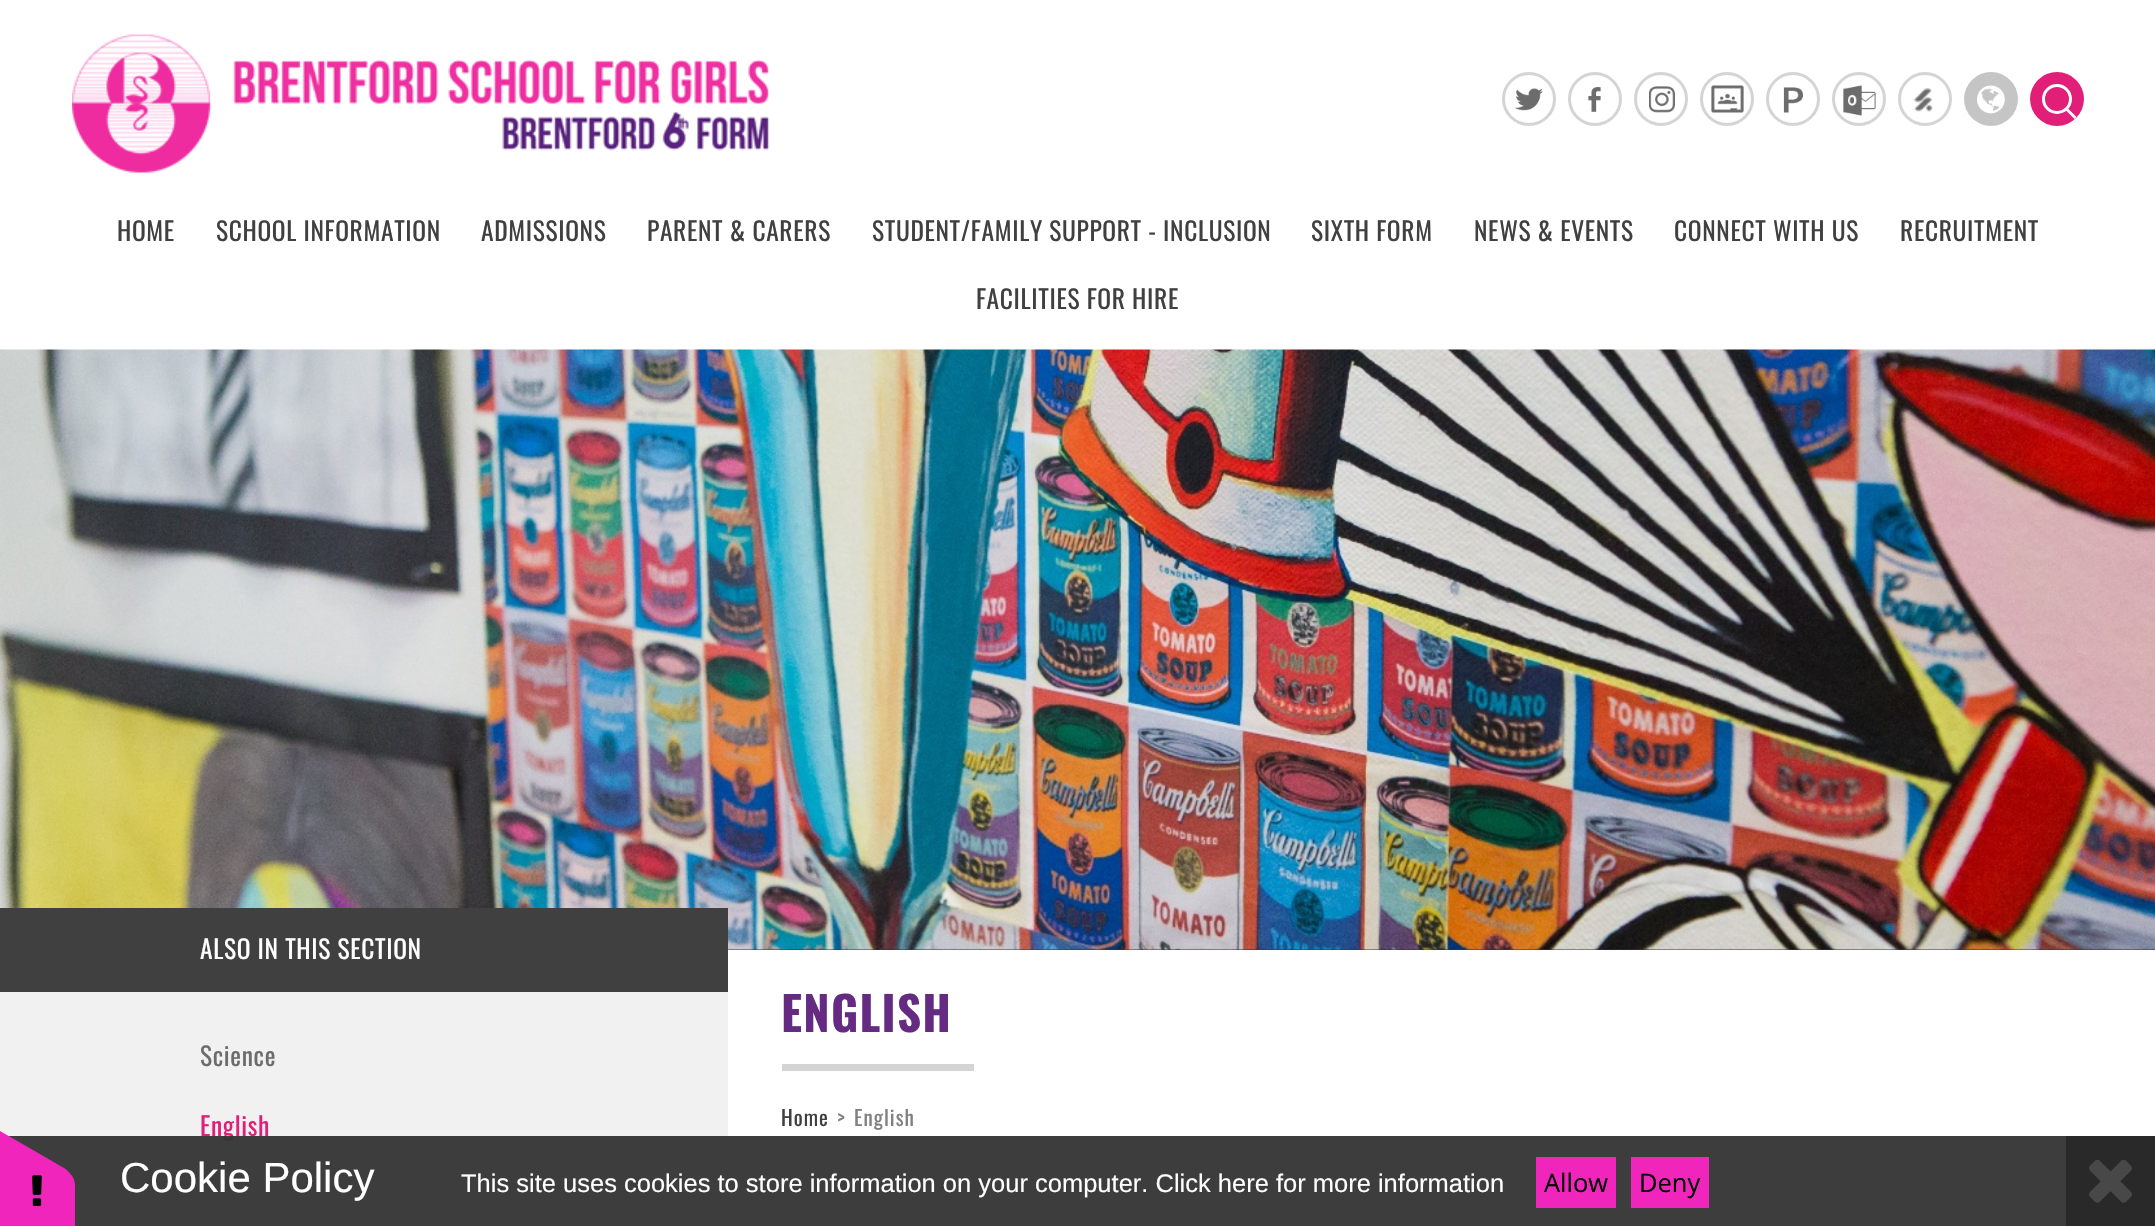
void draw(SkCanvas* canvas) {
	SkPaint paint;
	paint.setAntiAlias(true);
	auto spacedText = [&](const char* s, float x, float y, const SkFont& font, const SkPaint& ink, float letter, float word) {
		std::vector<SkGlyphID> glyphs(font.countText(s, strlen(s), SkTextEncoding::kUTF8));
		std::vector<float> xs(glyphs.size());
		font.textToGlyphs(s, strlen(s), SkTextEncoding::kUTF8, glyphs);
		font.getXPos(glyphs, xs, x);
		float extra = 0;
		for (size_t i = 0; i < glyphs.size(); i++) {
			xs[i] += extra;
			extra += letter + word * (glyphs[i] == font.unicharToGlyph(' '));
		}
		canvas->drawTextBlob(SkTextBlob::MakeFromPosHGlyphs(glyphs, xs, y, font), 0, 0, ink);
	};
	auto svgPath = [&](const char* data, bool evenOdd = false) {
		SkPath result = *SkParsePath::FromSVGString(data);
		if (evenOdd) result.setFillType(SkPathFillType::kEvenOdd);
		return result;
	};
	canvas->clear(0xffffffff);
	canvas->drawImageRect(SkImages::DeferredFromEncodedData(SkData::MakeFromFileName("img1.png")), SkRect::MakeXYWH(72, 34, 698, 139), SkSamplingOptions());
	canvas->drawImageRect(SkImages::DeferredFromEncodedData(SkData::MakeFromFileName("img2.png")), SkRect::MakeXYWH(1515, 88, 28, 23), SkSamplingOptions());
	paint.setStroke(true);
	paint.setStrokeWidth(3);
	paint.setColor(0xffd4d4d4);
	canvas->drawCircle(1529, 99, 25.5, paint);
	canvas->drawImageRect(SkImages::DeferredFromEncodedData(SkData::MakeFromFileName("img3.png")), SkRect::MakeXYWH(1588, 87, 13, 25), SkSamplingOptions());
	canvas->drawCircle(1595, 99, 25.5, paint);
	canvas->drawImageRect(SkImages::DeferredFromEncodedData(SkData::MakeFromFileName("img4.png")), SkRect::MakeXYWH(1649, 86, 26, 27), SkSamplingOptions());
	canvas->drawCircle(1661, 99, 25.5, paint);
	canvas->drawImageRect(SkImages::DeferredFromEncodedData(SkData::MakeFromFileName("img5.png")), SkRect::MakeXYWH(1711, 85, 33, 28), SkSamplingOptions());
	canvas->drawCircle(1727, 99, 25.5, paint);
	canvas->drawImageRect(SkImages::DeferredFromEncodedData(SkData::MakeFromFileName("img6.png")), SkRect::MakeXYWH(1783, 87, 20, 26), SkSamplingOptions());
	canvas->drawCircle(1793, 99, 25.5, paint);
	canvas->drawImageRect(SkImages::DeferredFromEncodedData(SkData::MakeFromFileName("img7.png")), SkRect::MakeXYWH(1843, 85, 33, 31), SkSamplingOptions());
	canvas->drawCircle(1859, 99, 25.5, paint);
	canvas->drawImageRect(SkImages::DeferredFromEncodedData(SkData::MakeFromFileName("img8.png")), SkRect::MakeXYWH(1912, 88, 21, 24), SkSamplingOptions());
	canvas->drawCircle(1925, 99, 25.5, paint);
	paint.setStroke(false);
	paint.setColor(0xffc5c5c5);
	canvas->drawCircle(1991, 99, 27, paint);
	canvas->drawImageRect(SkImages::DeferredFromEncodedData(SkData::MakeFromFileName("img9.png")), SkRect::MakeXYWH(1977, 85, 28, 29), SkSamplingOptions());
	paint.setColor(0xffe11e78);
	canvas->drawCircle(2057, 99, 27, paint);
	paint.setColor(0xffffffff);
	canvas->drawPath(svgPath("M2055.5 100L2057.5 98L2076.5 117L2074.5 119Z"), paint);
	paint.setColor(0xffe11e78);
	canvas->drawCircle(2057, 99, 13.5, paint);
	paint.setStroke(true);
	paint.setColor(0xffffffff);
	canvas->drawCircle(2057, 99, 13.5, paint);
	SkFont f1(fontMgr->matchFamilyStyle("Oswald", SkFontStyle::Normal()), 25.5);
	f1.setSubpixel(true);
	paint.setStroke(false);
	paint.setColor(0xff404040);
	spacedText("HOME", 117, 241, f1, paint, 0.65, 0);
	spacedText("SCHOOL INFORMATION", 216, 241, f1, paint, 0.65, 0);
	spacedText("ADMISSIONS", 481, 241, f1, paint, 0.65, 0);
	spacedText("PARENT & CARERS", 647, 241, f1, paint, 0.65, 0);
	spacedText("STUDENT/FAMILY SUPPORT - INCLUSION", 872, 241, f1, paint, 0.65, 0);
	spacedText("SIXTH FORM", 1311, 241, f1, paint, 0.65, 0);
	spacedText("NEWS & EVENTS", 1474, 241, f1, paint, 0.65, 0);
	spacedText("CONNECT WITH US", 1674, 241, f1, paint, 0.65, 0);
	spacedText("RECRUITMENT", 1900, 241, f1, paint, 0.65, 0);
	spacedText("FACILITIES FOR HIRE", 976, 309, f1, paint, 0.65, 0);
	paint.setColor(0xff333333);
	canvas->drawRect(SkRect::MakeXYWH(728, 949, 1427, 1), paint);
	canvas->drawImageRect(SkImages::DeferredFromEncodedData(SkData::MakeFromFileName("img10.png")), SkRect::MakeXYWH(0, 349, 2155, 601), SkSamplingOptions());
	paint.setColor(0xfff1f1f1);
	canvas->drawRect(SkRect::MakeXYWH(0, 992, 728, 234), paint);
	paint.setColor(0xff404040);
	canvas->drawRect(SkRect::MakeXYWH(0, 908, 728, 84), paint);
	paint.setColor(0xffffffff);
	spacedText("ALSO IN THIS SECTION", 200, 959, f1, paint, 0.65, 0);
	paint.setColor(0xff6c6c6c);
	spacedText("Science", 200, 1066, f1, paint, 0.65, 0);
	paint.setColor(0xffe11e78);
	spacedText("English", 200, 1136, f1, paint, 0.65, 0);
	SkFont f2(fontMgr->matchFamilyStyle("Oswald", SkFontStyle::Bold()), 47);
	f2.setSubpixel(true);
	paint.setColor(0xff652b82);
	spacedText("ENGLISH", 781, 1032, f2, paint, 1.25, 0);
	paint.setColor(0xffd4d4d4);
	canvas->drawRect(SkRect::MakeXYWH(782, 1064, 192, 7), paint);
	SkFont f3(fontMgr->matchFamilyStyle("Oswald", SkFontStyle::Normal()), 21);
	f3.setSubpixel(true);
	paint.setColor(0xff404040);
	spacedText("Home", 781, 1126, f3, paint, 1, 0);
	paint.setColor(0xff808080);
	spacedText(">", 837, 1126, f3, paint, 1, 0);
	spacedText("English", 854, 1126, f3, paint, 1, 0);
	paint.setColor(0xf2333333);
	canvas->drawRect(SkRect::MakeXYWH(8, 1136, 2058, 90), paint);
	paint.setColor(0xfff026bc);
	canvas->drawPath(svgPath("M75 1186V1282C75 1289 72 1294 69 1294H-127C-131 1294-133 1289-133 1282V1186C-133 1180-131 1174-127 1174H69C72 1174 75 1180 75 1186Z"), paint);
	canvas->drawPath(svgPath("M-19 1120L64 1168C70 1172 73 1177 72 1180L-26 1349C-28 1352-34 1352-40 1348L-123 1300C-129 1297-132 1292-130 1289L-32 1120C-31 1117-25 1117-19 1120Z"), paint);
	canvas->drawImageRect(SkImages::DeferredFromEncodedData(SkData::MakeFromFileName("img11.png")), SkRect::MakeXYWH(32, 1175, 10, 31), SkSamplingOptions());
	SkFont f4(fontMgr->matchFamilyStyle("Liberation Sans", SkFontStyle::Normal()), 42);
	f4.setSubpixel(true);
	paint.setColor(0xffffffff);
	canvas->drawString("Cookie Policy", 120, 1192, f4, paint);
	SkFont f5(fontMgr->matchFamilyStyle("Liberation Sans", SkFontStyle::Normal()), 25.5);
	f5.setSubpixel(true);
	canvas->drawString("This site uses cookies to store information on your computer. Click here for more information", 461, 1192, f5, paint);
	paint.setColor(0xfff026bc);
	canvas->drawRect(SkRect::MakeXYWH(1536, 1157, 80, 51), paint);
	SkFont f6(fontMgr->matchFamilyStyle("Open Sans", SkFontStyle::Normal()), 25.5);
	f6.setSubpixel(true);
	paint.setColor(0xff000000);
	canvas->drawString("Allow", 1544, 1192, f6, paint);
	paint.setColor(0xfff026bc);
	canvas->drawRect(SkRect::MakeXYWH(1631, 1157, 78, 51), paint);
	paint.setColor(0xff000000);
	canvas->drawString("Deny", 1639, 1192, f6, paint);
	paint.setColor(0xff292929);
	canvas->drawRect(SkRect::MakeXYWH(2066, 1136, 89, 90), paint);
	canvas->drawImageRect(SkImages::DeferredFromEncodedData(SkData::MakeFromFileName("img12.png")), SkRect::MakeXYWH(2089, 1159, 43, 44), SkSamplingOptions());
}
